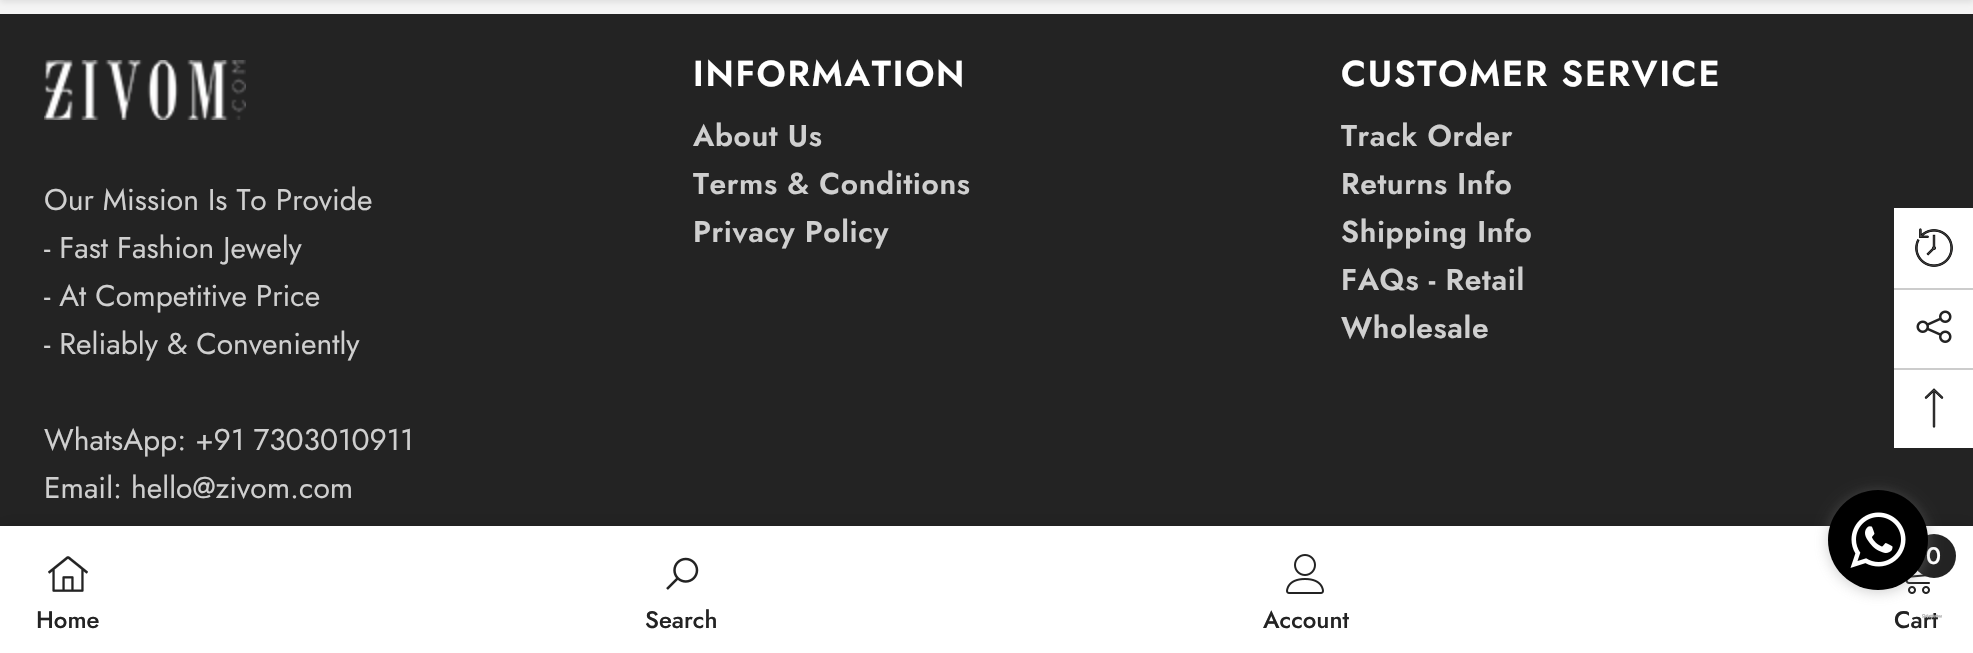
void draw(SkCanvas* canvas) {
	SkPaint paint;
	paint.setAntiAlias(true);
	auto spacedText = [&](const char* s, float x, float y, const SkFont& font, const SkPaint& ink, float letter, float word) {
		std::vector<SkGlyphID> glyphs(font.countText(s, strlen(s), SkTextEncoding::kUTF8));
		std::vector<float> xs(glyphs.size());
		font.textToGlyphs(s, strlen(s), SkTextEncoding::kUTF8, glyphs);
		font.getXPos(glyphs, xs, x);
		float extra = 0;
		for (size_t i = 0; i < glyphs.size(); i++) {
			xs[i] += extra;
			extra += letter + word * (glyphs[i] == font.unicharToGlyph(' '));
		}
		canvas->drawTextBlob(SkTextBlob::MakeFromPosHGlyphs(glyphs, xs, y, font), 0, 0, ink);
	};
	canvas->clear(0xfff5f5f5);
	paint.setColor(0x1a000000);
	paint.setMaskFilter(SkMaskFilter::MakeBlur(kNormal_SkBlurStyle, 3));
	canvas->drawRect(SkRect::MakeXYWH(0, -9, 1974, 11), paint);
	paint.setMaskFilter(nullptr);
	paint.setColor(0xff232323);
	canvas->drawRect(SkRect::MakeXYWH(0, 14, 1973, 512), paint);
	canvas->drawImageRect(SkImages::DeferredFromEncodedData(SkData::MakeFromFileName("img1.png")), SkRect::MakeXYWH(44, 60, 202, 60), SkSamplingOptions());
	SkFont f1(fontMgr->matchFamilyStyle("Jost", SkFontStyle::Normal()), 30);
	f1.setSubpixel(true);
	paint.setColor(0xffcfcfcf);
	canvas->drawString("Our Mission Is To Provide", 44, 210, f1, paint);
	canvas->drawString("- Fast Fashion Jewely", 44, 258, f1, paint);
	canvas->drawString("- At Competitive Price", 44, 306, f1, paint);
	canvas->drawString("- Reliably & Conveniently", 44, 354, f1, paint);
	canvas->drawString("WhatsApp: +91 7303010911", 44, 450, f1, paint);
	canvas->drawString("Email: hello@zivom.com", 44, 498, f1, paint);
	SkFont f2(fontMgr->matchFamilyStyle("Jost", SkFontStyle(600, SkFontStyle::kNormal_Width, SkFontStyle::kUpright_Slant)), 36);
	f2.setSubpixel(true);
	paint.setColor(0xffffffff);
	spacedText("INFORMATION", 693, 86, f2, paint, 1.75, 0);
	SkFont f3(fontMgr->matchFamilyStyle("Jost", SkFontStyle(600, SkFontStyle::kNormal_Width, SkFontStyle::kUpright_Slant)), 30);
	f3.setSubpixel(true);
	paint.setColor(0xffcfcfcf);
	spacedText("About Us", 693, 146, f3, paint, 0.6, 0);
	spacedText("Terms & Conditions", 693, 194, f3, paint, 0.6, 0);
	spacedText("Privacy Policy", 693, 242, f3, paint, 0.6, 0);
	paint.setColor(0xffffffff);
	spacedText("CUSTOMER SERVICE", 1341, 86, f2, paint, 1.75, 0);
	paint.setColor(0xffcfcfcf);
	spacedText("Track Order", 1341, 146, f3, paint, 0.6, 0);
	spacedText("Returns Info", 1341, 194, f3, paint, 0.6, 0);
	spacedText("Shipping Info", 1341, 242, f3, paint, 0.6, 0);
	spacedText("FAQs - Retail", 1341, 290, f3, paint, 0.6, 0);
	spacedText("Wholesale", 1341, 338, f3, paint, 0.6, 0);
	paint.setColor(0x1f000000);
	paint.setMaskFilter(SkMaskFilter::MakeBlur(kNormal_SkBlurStyle, 9));
	canvas->drawRect(SkRect::MakeXYWH(0, 526, 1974, 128), paint);
	paint.setMaskFilter(nullptr);
	paint.setColor(0xffffffff);
	canvas->drawRect(SkRect::MakeXYWH(0, 526, 1973, 127), paint);
	canvas->drawImageRect(SkImages::DeferredFromEncodedData(SkData::MakeFromFileName("img2.png")), SkRect::MakeXYWH(48, 556, 40, 36), SkSamplingOptions());
	SkFont f4(fontMgr->matchFamilyStyle("Jost", SkFontStyle(500, SkFontStyle::kNormal_Width, SkFontStyle::kUpright_Slant)), 24);
	f4.setSubpixel(true);
	paint.setColor(0xff232323);
	canvas->drawString("Home", 36, 628, f4, paint);
	canvas->drawImageRect(SkImages::DeferredFromEncodedData(SkData::MakeFromFileName("img3.png")), SkRect::MakeXYWH(666, 557, 33, 33), SkSamplingOptions());
	canvas->drawString("Search", 645, 628, f4, paint);
	canvas->drawImageRect(SkImages::DeferredFromEncodedData(SkData::MakeFromFileName("img4.png")), SkRect::MakeXYWH(1286, 554, 38, 40), SkSamplingOptions());
	canvas->drawString("Account", 1263, 628, f4, paint);
	canvas->drawImageRect(SkImages::DeferredFromEncodedData(SkData::MakeFromFileName("img5.png")), SkRect::MakeXYWH(1905, 574, 25, 20), SkSamplingOptions());
	canvas->drawCircle(1934, 556, 22, paint);
	paint.setColor(0xffffffff);
	canvas->drawString("0", 1926, 564, f4, paint);
	paint.setColor(0xff232323);
	canvas->drawString("Cart", 1894, 628, f4, paint);
	paint.setColor(0xffffffff);
	canvas->drawRect(SkRect::MakeXYWH(1894, 208, 79, 240), paint);
	canvas->drawImageRect(SkImages::DeferredFromEncodedData(SkData::MakeFromFileName("img6.png")), SkRect::MakeXYWH(1915, 228, 38, 39), SkSamplingOptions());
	paint.setColor(0xffcccccc);
	canvas->drawRect(SkRect::MakeXYWH(1894, 288, 79, 2), paint);
	canvas->drawImageRect(SkImages::DeferredFromEncodedData(SkData::MakeFromFileName("img7.png")), SkRect::MakeXYWH(1916, 310, 36, 33), SkSamplingOptions());
	canvas->drawRect(SkRect::MakeXYWH(1894, 368, 79, 2), paint);
	canvas->drawImageRect(SkImages::DeferredFromEncodedData(SkData::MakeFromFileName("img8.png")), SkRect::MakeXYWH(1924, 388, 20, 40), SkSamplingOptions());
	paint.setColor(0x66888888);
	paint.setMaskFilter(SkMaskFilter::MakeBlur(kNormal_SkBlurStyle, 7));
	canvas->drawRoundRect(SkRect::MakeXYWH(1828, 492, 100, 100), 50, 50, paint);
	paint.setMaskFilter(nullptr);
	paint.setColor(0xff000000);
	canvas->drawCircle(1878, 540, 50, paint);
	canvas->drawImageRect(SkImages::DeferredFromEncodedData(SkData::MakeFromFileName("img9.png")), SkRect::MakeXYWH(1850, 512, 56, 56), SkSamplingOptions());
	canvas->drawImageRect(SkImages::DeferredFromEncodedData(SkData::MakeFromFileName("img10.png")), SkRect::MakeXYWH(1922, 614, 20, 4), SkSamplingOptions());
}
